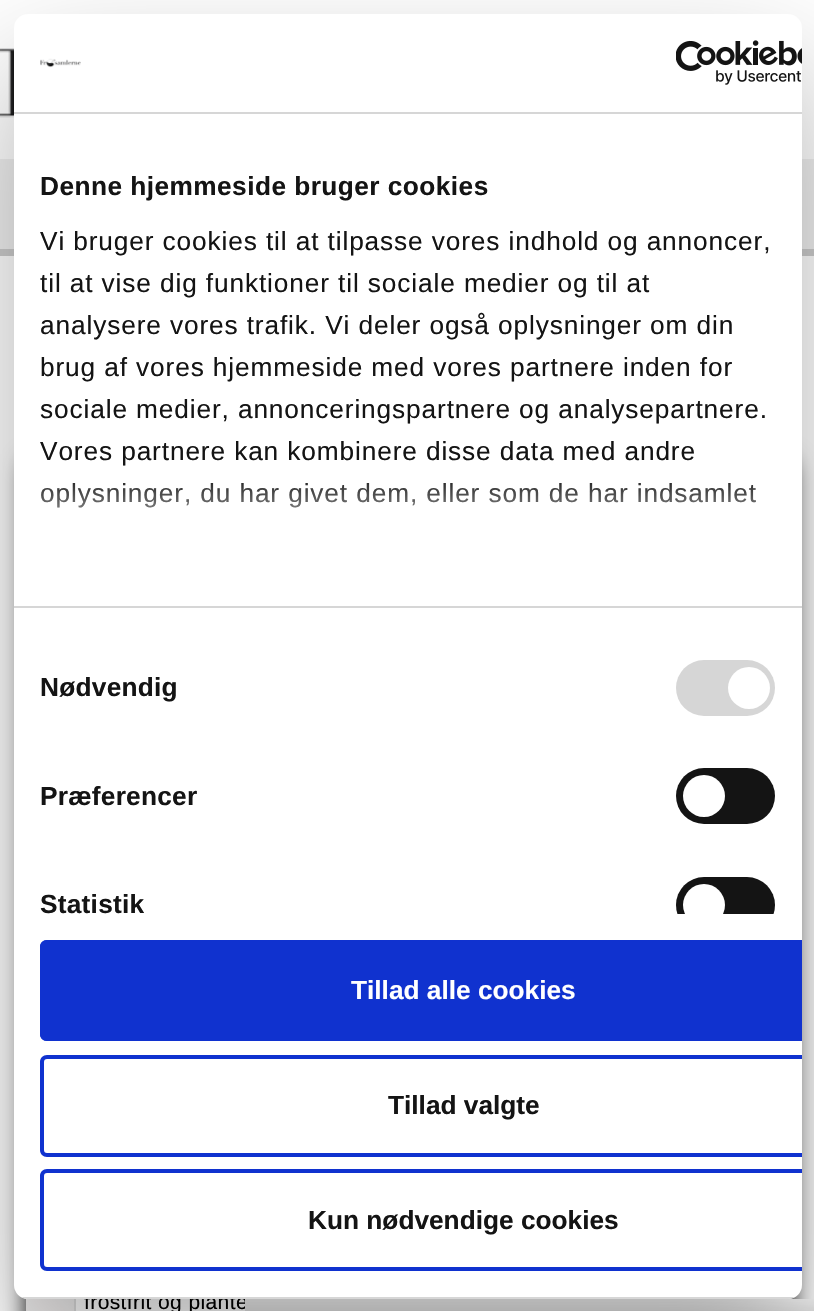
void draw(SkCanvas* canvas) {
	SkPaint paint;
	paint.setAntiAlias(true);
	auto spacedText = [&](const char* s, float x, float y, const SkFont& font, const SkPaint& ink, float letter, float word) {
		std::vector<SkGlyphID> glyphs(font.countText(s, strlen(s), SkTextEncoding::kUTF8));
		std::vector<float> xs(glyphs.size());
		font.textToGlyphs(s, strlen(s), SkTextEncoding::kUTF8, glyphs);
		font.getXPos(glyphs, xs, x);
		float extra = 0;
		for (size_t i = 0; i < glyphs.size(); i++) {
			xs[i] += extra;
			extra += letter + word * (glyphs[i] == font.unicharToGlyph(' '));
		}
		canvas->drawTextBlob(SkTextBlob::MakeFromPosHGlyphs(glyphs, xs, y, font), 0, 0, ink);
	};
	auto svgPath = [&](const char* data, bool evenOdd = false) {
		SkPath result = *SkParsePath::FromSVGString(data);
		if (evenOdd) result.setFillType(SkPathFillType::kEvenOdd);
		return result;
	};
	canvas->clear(0xffffffff);
	canvas->drawImageRect(SkImages::DeferredFromEncodedData(SkData::MakeFromFileName("img3.png")), SkRect::MakeXYWH(0, 36, 14, 110), SkSamplingOptions());
	paint.setColor(0xffcccccc);
	canvas->drawRect(SkRect::MakeXYWH(0, 249, 814, 7), paint);
	paint.setColor(0xfff0f0f0);
	canvas->drawRect(SkRect::MakeXYWH(0, 159, 814, 90), paint);
	paint.setColor(0xff000000);
	paint.setMaskFilter(SkMaskFilter::MakeBlur(kNormal_SkBlurStyle, 11.5));
	canvas->drawRect(SkRect::MakeXYWH(28, 462, 763, 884), paint);
	paint.setMaskFilter(nullptr);
	paint.setColor(0xffefeded);
	canvas->drawRect(SkRect::MakeXYWH(26, 1298, 48, 13), paint);
	paint.setColor(0xffffffff);
	canvas->drawRect(SkRect::MakeXYWH(76, 1298, 713, 13), paint);
	canvas->save();
	canvas->clipRect(SkRect::MakeXYWH(26, 443, 763, 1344));
	paint.setStroke(true);
	paint.setStrokeWidth(2);
	paint.setColor(0xffdddddd);
	canvas->drawRect(SkRect::MakeXYWH(75, 461, 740, 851), paint);
	canvas->restore();
	SkFont f1(fontMgr->matchFamilyStyle("Liberation Sans", SkFontStyle::Normal()), 21);
	f1.setSubpixel(true);
	paint.setStroke(false);
	paint.setColor(0xff000000);
	spacedText("frostfrit og plante", 84, 1309, f1, paint, 0.4, 0);
	{
		const SkColor colors[] = {0xfff6f6f6, 0xffe3e3e3};
		const float stops[] = {0, 1};
		const SkPoint ends[] = {{530, 1299}, {530, 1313}};
		paint.setShader(SkGradientShader::MakeLinear(ends, colors, stops, 2, SkTileMode::kClamp));
		paint.setAlpha(255);
	}
	canvas->drawRect(SkRect::MakeXYWH(245, 1299, 569, 12), paint);
	paint.setShader(nullptr);
	paint.setColor(0x4d000000);
	paint.setMaskFilter(SkMaskFilter::MakeBlur(kNormal_SkBlurStyle, 59.5));
	canvas->drawRoundRect(SkRect::MakeXYWH(14, 70, 788, 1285), 14, 14, paint);
	paint.setMaskFilter(nullptr);
	paint.setColor(0xffffffff);
	canvas->drawRoundRect(SkRect::MakeXYWH(14, 14, 788, 1285), 14, 14, paint);
	paint.setColor(0xffd6d6d6);
	canvas->drawRect(SkRect::MakeXYWH(14, 112, 788, 2), paint);
	canvas->drawImageRect(SkImages::DeferredFromEncodedData(SkData::MakeFromFileName("img1.png")), SkRect::MakeXYWH(40, 58, 41, 10), SkSamplingOptions());
	canvas->drawImageRect(SkImages::DeferredFromEncodedData(SkData::MakeFromFileName("img2.png")), SkRect::MakeXYWH(676, 40, 126, 45), SkSamplingOptions());
	canvas->drawRect(SkRect::MakeXYWH(14, 606, 788, 2), paint);
	SkFont f2(fontMgr->matchFamilyStyle("Liberation Sans", SkFontStyle::Bold()), 26.25);
	f2.setSubpixel(true);
	paint.setColor(0xff141414);
	spacedText("Denne hjemmeside bruger cookies", 40, 195, f2, paint, 0.45, 0);
	SkFont f3(fontMgr->matchFamilyStyle("Liberation Sans", SkFontStyle::Normal()), 26.25);
	f3.setSubpixel(true);
	spacedText("Vi bruger cookies til at tilpasse vores indhold og annoncer,", 40, 250, f3, paint, 0.88, 0);
	spacedText("til at vise dig funktioner til sociale medier og til at", 40, 292, f3, paint, 0.88, 0);
	spacedText("analysere vores trafik. Vi deler også oplysninger om din", 40, 334, f3, paint, 0.88, 0);
	spacedText("brug af vores hjemmeside med vores partnere inden for", 40, 376, f3, paint, 0.88, 0);
	spacedText("sociale medier, annonceringspartnere og analysepartnere.", 40, 418, f3, paint, 0.88, 0);
	spacedText("Vores partnere kan kombinere disse data med andre", 40, 460, f3, paint, 0.88, 0);
	spacedText("oplysninger, du har givet dem, eller som de har indsamlet", 40, 502, f3, paint, 0.88, 0);
	{
		const SkColor colors[] = {0xffffffff, 0xccffffff, 0x00ffffff};
		const float stops[] = {0, 0.5, 1};
		const SkPoint ends[] = {{396, 606}, {396, 474}};
		paint.setShader(SkGradientShader::MakeLinear(ends, colors, stops, 3, SkTileMode::kClamp));
		paint.setAlpha(255);
	}
	canvas->drawRect(SkRect::MakeXYWH(41, 483, 715, 25), paint);
	paint.setShader(nullptr);
	paint.setColor(0xff141414);
	spacedText("Nødvendig", 40, 696, f2, paint, 0.25, 0);
	paint.setColor(0xffd6d6d6);
	canvas->drawRoundRect(SkRect::MakeXYWH(676, 660, 99, 56), 28, 28, paint);
	paint.setColor(0xffffffff);
	canvas->drawCircle(749, 688, 21, paint);
	paint.setColor(0xff141414);
	spacedText("Præferencer", 40, 805, f2, paint, 0.25, 0);
	canvas->drawRoundRect(SkRect::MakeXYWH(676, 768, 99, 56), 28, 28, paint);
	paint.setColor(0xffffffff);
	canvas->drawCircle(704, 796, 21, paint);
	paint.setColor(0xff141414);
	spacedText("Statistik", 40, 913, f2, paint, 0.25, 0);
	canvas->save();
	canvas->clipRect(SkRect::MakeXYWH(14, 114, 788, 800));
	canvas->drawRoundRect(SkRect::MakeXYWH(676, 877, 99, 56), 28, 28, paint);
	paint.setColor(0xffffffff);
	canvas->drawCircle(704, 905, 21, paint);
	canvas->restore();
	canvas->save();
	canvas->clipPath(svgPath("M28 14H788C795.5 14 802 20.5 802 28V1285C802 1292.5 795.5 1299 788 1299H28C20.5 1299 14 1292.5 14 1285V28C14 20.5 20.5 14 28 14Z"), true);
	paint.setColor(0xffd6d6d6);
	canvas->drawRect(SkRect::MakeXYWH(14, 1297, 788, 2), paint);
	canvas->restore();
	paint.setColor(0xff1032cf);
	canvas->drawPath(svgPath("M47 940H802V1041H47C43 1041 40 1038 40 1034V947C40 943 43 940 47 940Z"), paint);
	canvas->drawPath(svgPath("M47 940C43 940 40 943 40 947V1034C40 1038 43 1041 47 1041H802V1037H47C45 1037 44 1036 44 1034V947C44 945 45 944 47 944H802V940Z"), paint);
	paint.setColor(0xffffffff);
	canvas->drawString("Tillad alle cookies", 351, 999, f2, paint);
	paint.setColor(0xff1032cf);
	canvas->drawPath(svgPath("M47 1055C43 1055 40 1058 40 1062V1150C40 1154 43 1157 47 1157H802V1153H47C45 1153 44 1152 44 1150V1062C44 1060 45 1059 47 1059H802V1055Z"), paint);
	paint.setColor(0xff141414);
	canvas->drawString("Tillad valgte", 388, 1114, f2, paint);
	paint.setColor(0xff1032cf);
	canvas->drawPath(svgPath("M47 1169C43 1169 40 1172 40 1176V1264C40 1268 43 1271 47 1271H802V1267H47C45 1267 44 1266 44 1264V1176C44 1174 45 1173 47 1173H802V1169Z"), paint);
	paint.setColor(0xff141414);
	canvas->drawString("Kun nødvendige cookies", 308, 1229, f2, paint);
}
